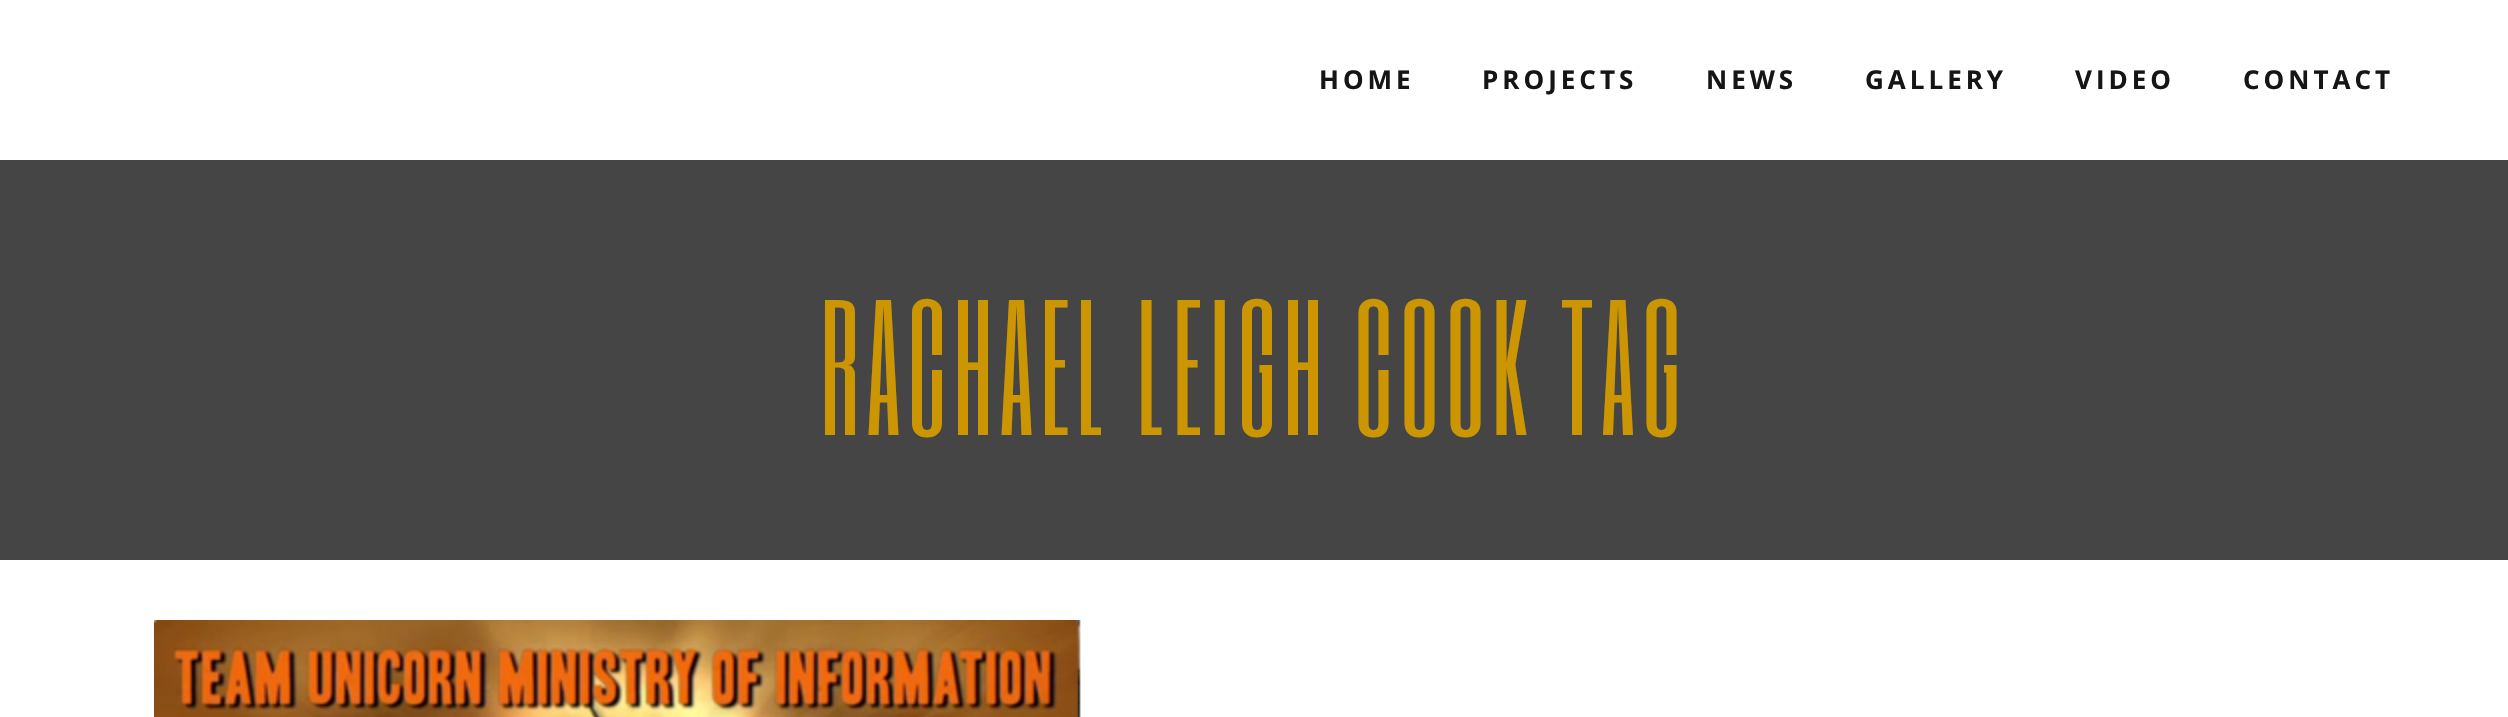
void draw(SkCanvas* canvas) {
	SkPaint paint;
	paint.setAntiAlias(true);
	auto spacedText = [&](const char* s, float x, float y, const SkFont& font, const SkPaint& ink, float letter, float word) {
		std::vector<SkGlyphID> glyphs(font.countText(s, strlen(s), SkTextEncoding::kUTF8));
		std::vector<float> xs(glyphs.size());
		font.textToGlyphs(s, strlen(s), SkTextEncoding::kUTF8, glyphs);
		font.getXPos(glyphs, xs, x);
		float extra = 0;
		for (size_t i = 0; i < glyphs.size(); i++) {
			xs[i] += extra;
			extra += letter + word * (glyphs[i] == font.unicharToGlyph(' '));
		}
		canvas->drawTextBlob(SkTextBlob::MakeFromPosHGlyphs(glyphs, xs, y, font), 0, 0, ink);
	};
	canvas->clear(0xffffffff);
	SkFont f1(fontMgr->matchFamilyStyle("Open Sans", SkFontStyle::Bold()), 26);
	f1.setSubpixel(true);
	paint.setColor(0xff151515);
	spacedText("HOME", 1319, 89, f1, paint, 4, 0);
	spacedText("PROJECTS", 1482, 89, f1, paint, 4, 0);
	spacedText("NEWS", 1706, 89, f1, paint, 4, 0);
	spacedText("GALLERY", 1865, 89, f1, paint, 4, 0);
	spacedText("VIDEO", 2075, 89, f1, paint, 4, 0);
	spacedText("CONTACT", 2243, 89, f1, paint, 4, 0);
	paint.setColor(0xff454545);
	canvas->drawRect(SkRect::MakeXYWH(0, 160, 2508, 400), paint);
	SkFont f2(fontMgr->matchFamilyStyle("Six Caps", SkFontStyle::Normal()), 160);
	f2.setSubpixel(true);
	paint.setColor(0xffcc9602);
	spacedText("RACHAEL LEIGH COOK TAG", 820, 435, f2, paint, 6, 0);
	canvas->drawImageRect(SkImages::DeferredFromEncodedData(SkData::MakeFromFileName("img1.png")), SkRect::MakeXYWH(154, 620, 927, 97), SkSamplingOptions());
}
